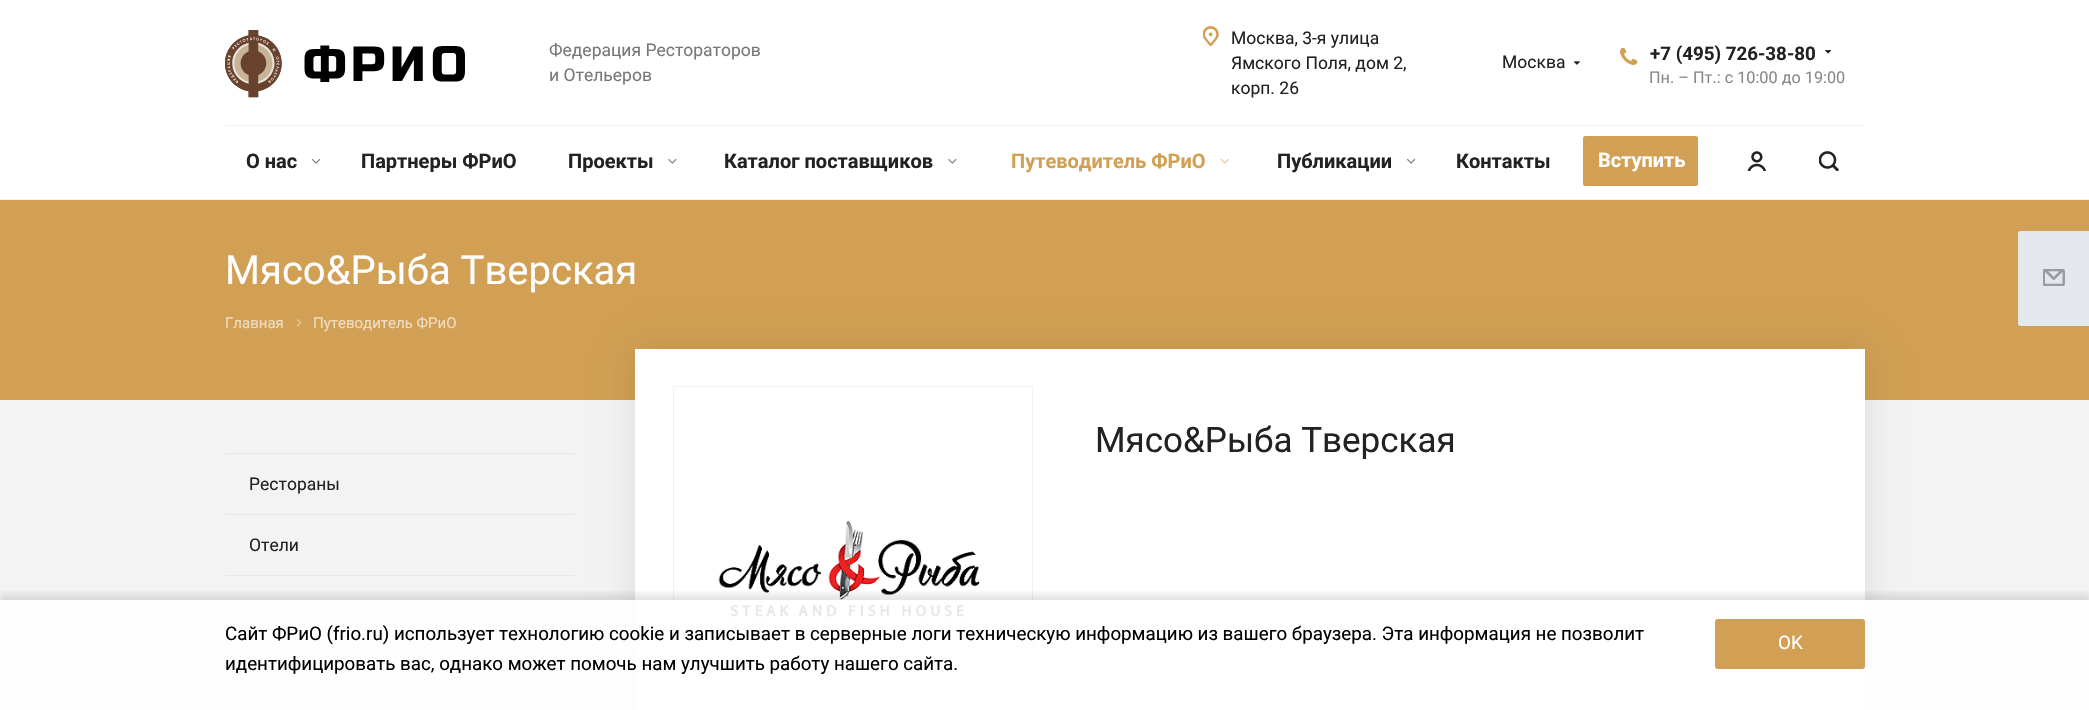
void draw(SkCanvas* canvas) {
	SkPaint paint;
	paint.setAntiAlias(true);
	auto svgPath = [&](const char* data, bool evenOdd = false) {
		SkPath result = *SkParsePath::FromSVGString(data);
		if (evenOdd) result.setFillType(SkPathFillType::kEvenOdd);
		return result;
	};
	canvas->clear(0xfff3f3f3);
	paint.setColor(0xffffffff);
	canvas->drawRect(SkRect::MakeXYWH(0, 0, 2089, 199), paint);
	canvas->drawImageRect(SkImages::DeferredFromEncodedData(SkData::MakeFromFileName("img1.png")), SkRect::MakeXYWH(225, 30, 240, 68), SkSamplingOptions());
	SkFont f1(fontMgr->matchFamilyStyle("Roboto", SkFontStyle::Normal()), 17.5);
	f1.setSubpixel(true);
	paint.setColor(0xff777777);
	canvas->drawString("Федерация Рестораторов", 549, 56, f1, paint);
	canvas->drawString("и Отельеров", 549, 81, f1, paint);
	canvas->drawImageRect(SkImages::DeferredFromEncodedData(SkData::MakeFromFileName("img2.png")), SkRect::MakeXYWH(1203, 26, 16, 20), SkSamplingOptions());
	paint.setColor(0xff222222);
	canvas->drawString("Москва, 3-я улица", 1231, 44, f1, paint);
	canvas->drawString("Ямского Поля, дом 2,", 1231, 69, f1, paint);
	canvas->drawString("корп. 26", 1231, 94, f1, paint);
	canvas->drawString("Москва", 1502, 68, f1, paint);
	canvas->drawImageRect(SkImages::DeferredFromEncodedData(SkData::MakeFromFileName("img3.png")), SkRect::MakeXYWH(1574, 61, 6, 4), SkSamplingOptions());
	canvas->drawImageRect(SkImages::DeferredFromEncodedData(SkData::MakeFromFileName("img4.png")), SkRect::MakeXYWH(1620, 48, 18, 17), SkSamplingOptions());
	SkFont f2(fontMgr->matchFamilyStyle("Roboto", SkFontStyle::Bold()), 18.75);
	f2.setSubpixel(true);
	canvas->drawString("+7 (495) 726-38-80", 1650, 60, f2, paint);
	canvas->drawImageRect(SkImages::DeferredFromEncodedData(SkData::MakeFromFileName("img5.png")), SkRect::MakeXYWH(1825, 50, 6, 4), SkSamplingOptions());
	canvas->save();
	canvas->clipRect(SkRect::MakeXYWH(1649, 69, 196, 16));
	SkFont f3(fontMgr->matchFamilyStyle("Roboto", SkFontStyle::Normal()), 16.25);
	f3.setSubpixel(true);
	paint.setColor(0xff888888);
	canvas->drawString("Пн. – Пт.: с 10:00 до 19:00", 1649, 83, f3, paint);
	canvas->restore();
	paint.setColor(0xfff2f2f2);
	canvas->drawRect(SkRect::MakeXYWH(225, 125, 1640, 1), paint);
	SkFont f4(fontMgr->matchFamilyStyle("Roboto", SkFontStyle::Bold()), 20);
	f4.setSubpixel(true);
	paint.setColor(0xff222222);
	canvas->drawString("О нас", 246, 168, f4, paint);
	canvas->drawImageRect(SkImages::DeferredFromEncodedData(SkData::MakeFromFileName("img6.png")), SkRect::MakeXYWH(312, 158, 9, 6), SkSamplingOptions());
	canvas->drawString("Партнеры ФРиО", 361, 168, f4, paint);
	canvas->drawString("Проекты", 568, 168, f4, paint);
	canvas->drawImageRect(SkImages::DeferredFromEncodedData(SkData::MakeFromFileName("img7.png")), SkRect::MakeXYWH(668, 158, 9, 6), SkSamplingOptions());
	canvas->drawString("Каталог поставщиков", 724, 168, f4, paint);
	canvas->drawImageRect(SkImages::DeferredFromEncodedData(SkData::MakeFromFileName("img7.png")), SkRect::MakeXYWH(948, 158, 9, 6), SkSamplingOptions());
	paint.setColor(0xffd1a054);
	canvas->drawString("Путеводитель ФРиО", 1011, 168, f4, paint);
	canvas->drawImageRect(SkImages::DeferredFromEncodedData(SkData::MakeFromFileName("img8.png")), SkRect::MakeXYWH(1220, 158, 9, 6), SkSamplingOptions());
	paint.setColor(0xff222222);
	canvas->drawString("Публикации", 1277, 168, f4, paint);
	canvas->drawImageRect(SkImages::DeferredFromEncodedData(SkData::MakeFromFileName("img6.png")), SkRect::MakeXYWH(1407, 158, 9, 6), SkSamplingOptions());
	canvas->drawString("Контакты", 1456, 168, f4, paint);
	paint.setColor(0xffd1a054);
	canvas->drawRoundRect(SkRect::MakeXYWH(1583, 136, 115, 50), 2.5, 2.5, paint);
	paint.setColor(0xffffffff);
	canvas->drawString("Вступить", 1598, 167, f4, paint);
	canvas->drawImageRect(SkImages::DeferredFromEncodedData(SkData::MakeFromFileName("img9.png")), SkRect::MakeXYWH(1747, 151, 19, 20), SkSamplingOptions());
	canvas->drawImageRect(SkImages::DeferredFromEncodedData(SkData::MakeFromFileName("img10.png")), SkRect::MakeXYWH(1819, 151, 20, 20), SkSamplingOptions());
	paint.setColor(0xfff0f0f0);
	canvas->drawRect(SkRect::MakeXYWH(0, 199, 2089, 1), paint);
	paint.setColor(0xffd1a054);
	canvas->drawRect(SkRect::MakeXYWH(0, 200, 2089, 200), paint);
	SkFont f5(fontMgr->matchFamilyStyle("Roboto", SkFontStyle::Normal()), 40);
	f5.setSubpixel(true);
	paint.setColor(0xffffffff);
	canvas->drawString("Мясо&Рыба Тверская", 225, 284, f5, paint);
	SkFont f6(fontMgr->matchFamilyStyle("Roboto", SkFontStyle::Normal()), 15);
	f6.setSubpixel(true);
	paint.setColor(0xffeeddc1);
	canvas->drawString("Главная", 225, 328, f6, paint);
	canvas->drawImageRect(SkImages::DeferredFromEncodedData(SkData::MakeFromFileName("img11.png")), SkRect::MakeXYWH(296, 319, 6, 8), SkSamplingOptions());
	canvas->drawString("Путеводитель ФРиО", 313, 328, f6, paint);
	paint.setColor(0x1a000000);
	paint.setMaskFilter(SkMaskFilter::MakeBlur(kNormal_SkBlurStyle, 17));
	canvas->drawRect(SkRect::MakeXYWH(635, 349, 1230, 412), paint);
	paint.setMaskFilter(nullptr);
	paint.setColor(0xffffffff);
	canvas->drawRect(SkRect::MakeXYWH(635, 349, 1230, 361), paint);
	paint.setStroke(true);
	paint.setStrokeWidth(1);
	paint.setColor(0xfff2f2f2);
	canvas->drawRect(SkRect::MakeXYWH(673.5, 386.5, 359, 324), paint);
	canvas->drawImageRect(SkImages::DeferredFromEncodedData(SkData::MakeFromFileName("img12.png")), SkRect::MakeXYWH(718, 521, 262, 96), SkSamplingOptions());
	SkFont f7(fontMgr->matchFamilyStyle("Roboto", SkFontStyle::Normal()), 35);
	f7.setSubpixel(true);
	paint.setStroke(false);
	paint.setColor(0xff222222);
	canvas->drawString("Мясо&Рыба Тверская", 1095, 452, f7, paint);
	paint.setColor(0xffe8e8e8);
	canvas->drawRect(SkRect::MakeXYWH(225, 453, 350, 1), paint);
	paint.setColor(0xff222222);
	canvas->drawString("Рестораны", 249, 490, f1, paint);
	paint.setColor(0xffe8e8e8);
	canvas->drawRect(SkRect::MakeXYWH(225, 514, 350, 1), paint);
	paint.setColor(0xff222222);
	canvas->drawString("Отели", 249, 551, f1, paint);
	paint.setColor(0xffe8e8e8);
	canvas->drawRect(SkRect::MakeXYWH(225, 575, 350, 1), paint);
	canvas->drawRect(SkRect::MakeXYWH(225, 636, 350, 1), paint);
	canvas->save();
	canvas->clipRect(SkRect::MakeXYWH(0, 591, 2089, 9));
	paint.setColor(0x1a000000);
	paint.setMaskFilter(SkMaskFilter::MakeBlur(kNormal_SkBlurStyle, 3));
	canvas->drawRect(SkRect::MakeXYWH(0, 594, 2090, 110), paint);
	paint.setMaskFilter(nullptr);
	canvas->restore();
	paint.setColor(0xe6ffffff);
	canvas->drawRect(SkRect::MakeXYWH(0, 600, 2089, 110), paint);
	SkFont f8(fontMgr->matchFamilyStyle("Roboto", SkFontStyle::Normal()), 18.75);
	f8.setSubpixel(true);
	paint.setColor(0xff000000);
	canvas->drawString("Сайт ФРиО (frio.ru) использует технологию cookie и записывает в серверные логи техническую информацию из вашего браузера. Эта информация не позволит", 225, 640, f8, paint);
	canvas->drawString("идентифицировать вас, однако может помочь нам улучшить работу нашего сайта.", 225, 670, f8, paint);
	paint.setColor(0xffd1a054);
	canvas->drawRoundRect(SkRect::MakeXYWH(1715.5, 619.5, 149, 49), 2, 2, paint);
	paint.setStroke(true);
	canvas->drawRoundRect(SkRect::MakeXYWH(1715.5, 619.5, 149, 49), 2, 2, paint);
	paint.setStroke(false);
	paint.setColor(0xffffffff);
	canvas->drawString("OK", 1778, 649, f8, paint);
	paint.setColor(0xffe4e8ec);
	canvas->drawPath(svgPath("M2020.5 231H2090V326H2020.5C2019 326 2018 325 2018 323.5V233.5C2018 232 2019 231 2020.5 231Z"), paint);
	canvas->drawImageRect(SkImages::DeferredFromEncodedData(SkData::MakeFromFileName("img13.png")), SkRect::MakeXYWH(2043, 269, 22, 17), SkSamplingOptions());
}
